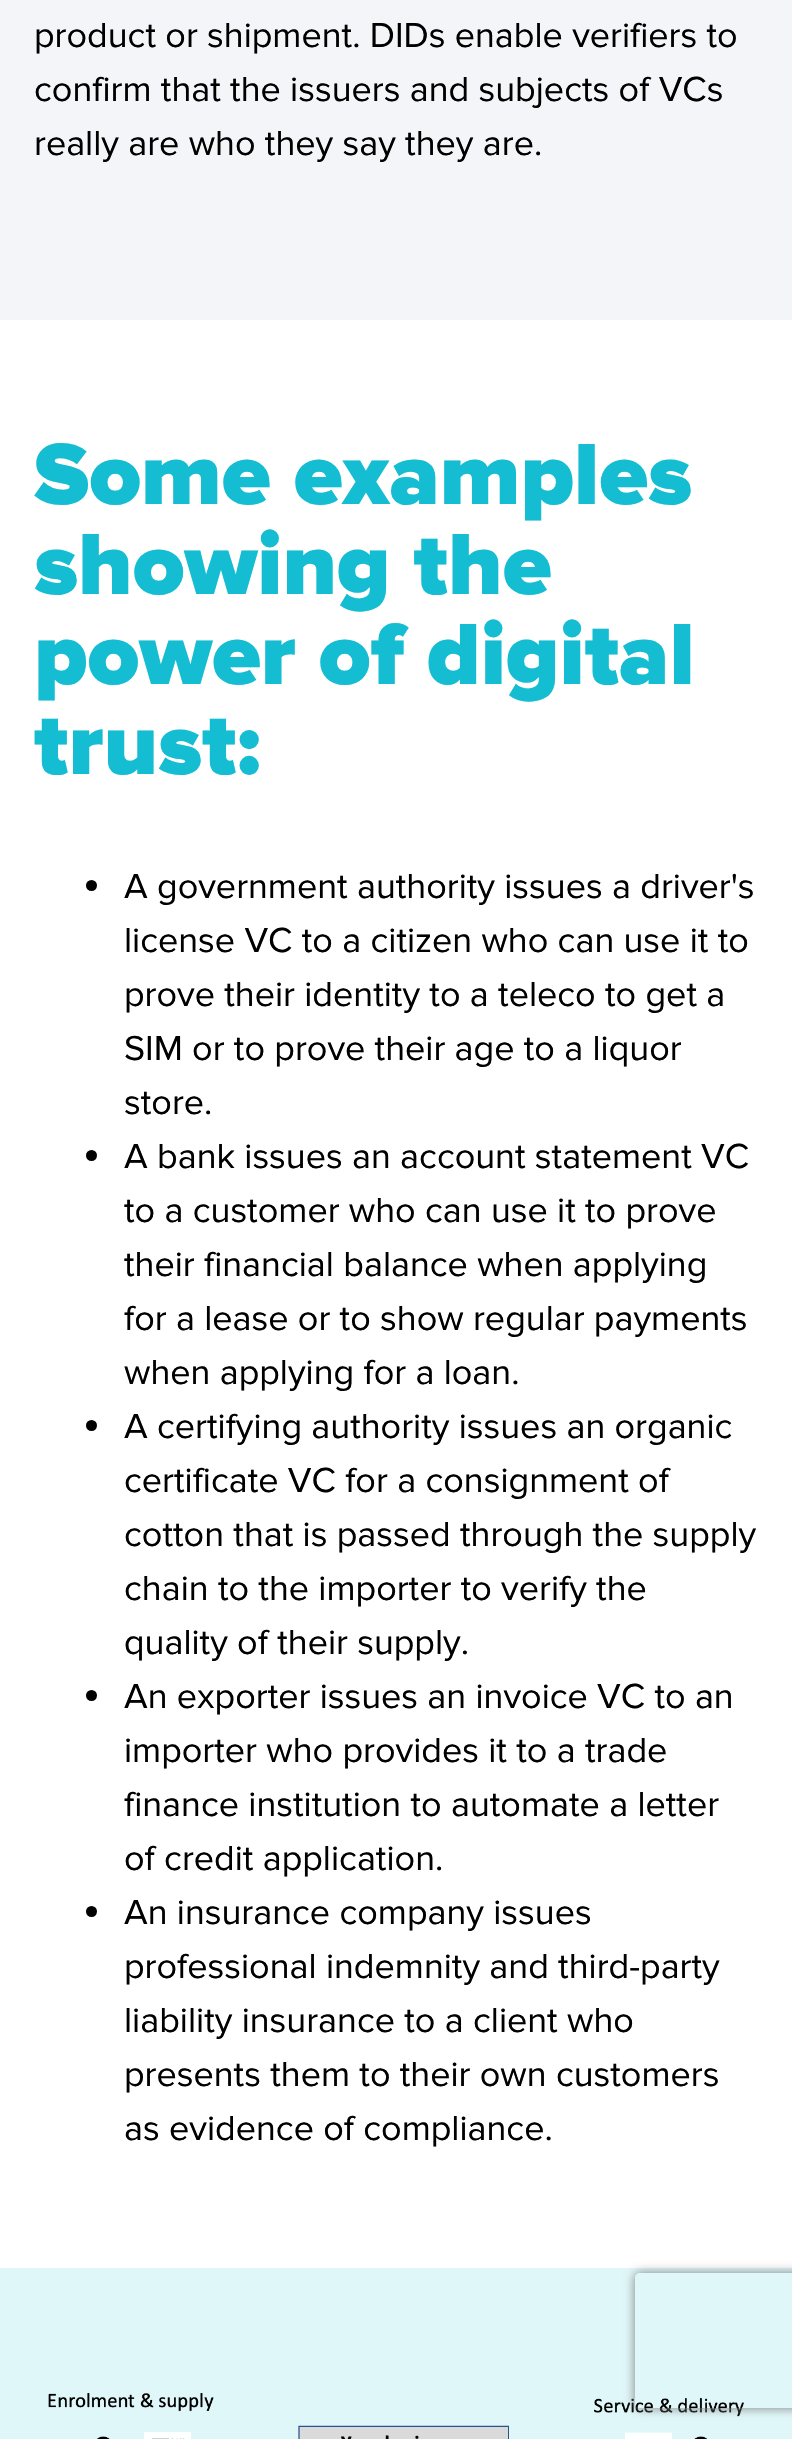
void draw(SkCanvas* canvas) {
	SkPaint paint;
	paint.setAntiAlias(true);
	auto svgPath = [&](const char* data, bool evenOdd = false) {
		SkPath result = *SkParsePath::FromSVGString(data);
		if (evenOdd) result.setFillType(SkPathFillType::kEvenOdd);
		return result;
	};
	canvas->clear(0xffffffff);
	paint.setColor(0xfff4f5f8);
	canvas->drawRect(SkRect::MakeXYWH(0, 0, 792, 320), paint);
	SkFont f1(fontMgr->matchFamilyStyle("Proxima Nova", SkFontStyle::Normal()), 36);
	f1.setSubpixel(true);
	paint.setColor(0xff000000);
	canvas->drawString("product or shipment. DIDs enable verifiers to", 34, 47, f1, paint);
	canvas->drawString("confirm that the issuers and subjects of VCs", 34, 101, f1, paint);
	canvas->drawString("really are who they say they are.", 34, 155, f1, paint);
	SkFont f2(fontMgr->matchFamilyStyle("Proxima Nova", SkFontStyle(900, SkFontStyle::kNormal_Width, SkFontStyle::kUpright_Slant)), 90);
	f2.setSubpixel(true);
	paint.setColor(0xff14bdd2);
	canvas->drawString("Some examples", 34, 504, f2, paint);
	canvas->drawString("showing the", 34, 594, f2, paint);
	canvas->drawString("power of digital", 34, 684, f2, paint);
	canvas->drawString("trust:", 34, 774, f2, paint);
	paint.setColor(0xff000000);
	canvas->drawCircle(91.5, 885.5, 5.5, paint);
	canvas->drawString("A government authority issues a driver's", 124, 898, f1, paint);
	canvas->drawString("license VC to a citizen who can use it to", 124, 952, f1, paint);
	canvas->drawString("prove their identity to a teleco to get a", 124, 1006, f1, paint);
	canvas->drawString("SIM or to prove their age to a liquor", 124, 1060, f1, paint);
	canvas->drawString("store.", 124, 1114, f1, paint);
	canvas->drawCircle(91.5, 1155.5, 5.5, paint);
	canvas->drawString("A bank issues an account statement VC", 124, 1168, f1, paint);
	canvas->drawString("to a customer who can use it to prove", 124, 1222, f1, paint);
	canvas->drawString("their financial balance when applying", 124, 1276, f1, paint);
	canvas->drawString("for a lease or to show regular payments", 124, 1330, f1, paint);
	canvas->drawString("when applying for a loan.", 124, 1384, f1, paint);
	canvas->drawCircle(91.5, 1425.5, 5.5, paint);
	canvas->drawString("A certifying authority issues an organic", 124, 1438, f1, paint);
	canvas->drawString("certificate VC for a consignment of", 124, 1492, f1, paint);
	canvas->drawString("cotton that is passed through the supply", 124, 1546, f1, paint);
	canvas->drawString("chain to the importer to verify the", 124, 1600, f1, paint);
	canvas->drawString("quality of their supply.", 124, 1654, f1, paint);
	canvas->drawCircle(91.5, 1695.5, 5.5, paint);
	canvas->drawString("An exporter issues an invoice VC to an", 124, 1708, f1, paint);
	canvas->drawString("importer who provides it to a trade", 124, 1762, f1, paint);
	canvas->drawString("finance institution to automate a letter", 124, 1816, f1, paint);
	canvas->drawString("of credit application.", 124, 1870, f1, paint);
	canvas->drawCircle(91.5, 1911.5, 5.5, paint);
	canvas->drawString("An insurance company issues", 124, 1924, f1, paint);
	canvas->drawString("professional indemnity and third-party", 124, 1978, f1, paint);
	canvas->drawString("liability insurance to a client who", 124, 2032, f1, paint);
	canvas->drawString("presents them to their own customers", 124, 2086, f1, paint);
	canvas->drawString("as evidence of compliance.", 124, 2140, f1, paint);
	paint.setColor(0xffe0f7f9);
	canvas->drawRect(SkRect::MakeXYWH(0, 2268, 792, 171), paint);
	canvas->drawImageRect(SkImages::DeferredFromEncodedData(SkData::MakeFromFileName("img1.png")), SkRect::MakeXYWH(48, 2393, 696, 46), SkSamplingOptions());
	canvas->save();
	canvas->clipPath(svgPath("M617 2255H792V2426H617ZM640 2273H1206C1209 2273 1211 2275 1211 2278V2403C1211 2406 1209 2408 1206 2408H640C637 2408 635 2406 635 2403V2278C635 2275 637 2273 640 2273Z", true), true);
	paint.setColor(0xff808080);
	paint.setMaskFilter(SkMaskFilter::MakeBlur(kNormal_SkBlurStyle, 5.5));
	canvas->drawRoundRect(SkRect::MakeXYWH(635, 2273, 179, 135), 5, 5, paint);
	paint.setMaskFilter(nullptr);
	canvas->restore();
}
